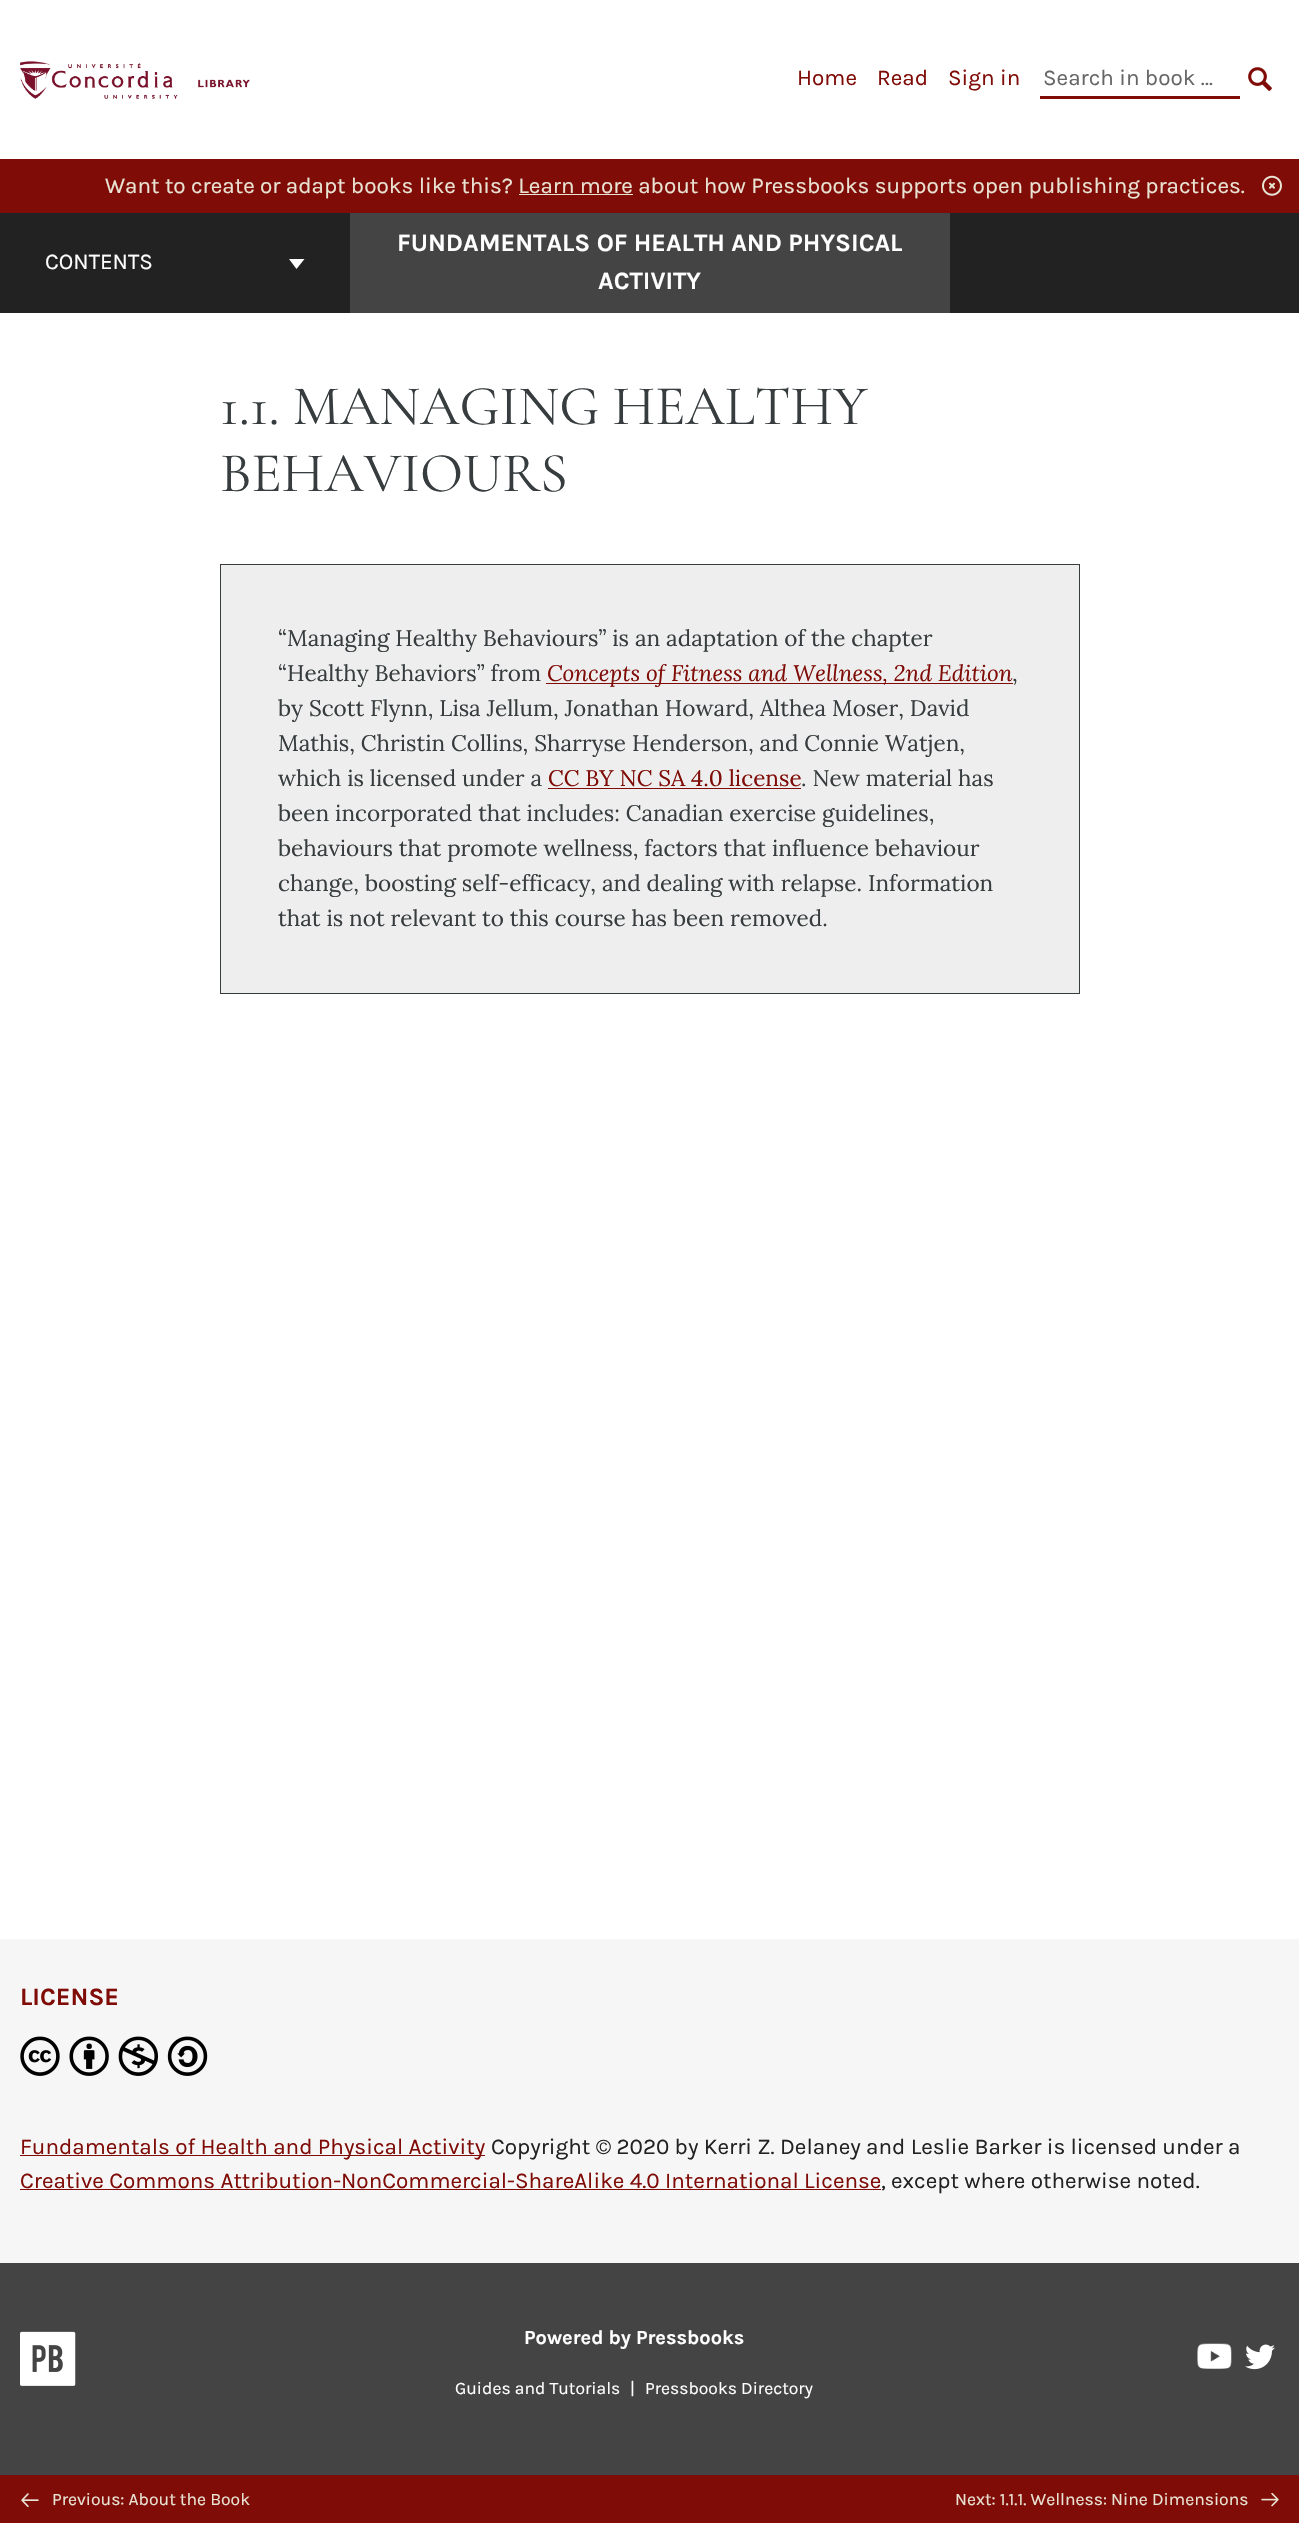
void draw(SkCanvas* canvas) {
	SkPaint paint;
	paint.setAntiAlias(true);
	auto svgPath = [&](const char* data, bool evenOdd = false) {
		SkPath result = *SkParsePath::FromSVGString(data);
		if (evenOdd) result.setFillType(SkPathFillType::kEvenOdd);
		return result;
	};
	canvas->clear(0xffffffff);
	canvas->drawImageRect(SkImages::DeferredFromEncodedData(SkData::MakeFromFileName("img1.png")), SkRect::MakeXYWH(20, 61, 230, 38), SkSamplingOptions());
	SkFont f1(fontMgr->matchFamilyStyle("Karla", SkFontStyle::Normal()), 22.5);
	f1.setSubpixel(true);
	paint.setColor(0xff7f0c07);
	canvas->drawString("Home", 797, 85, f1, paint);
	canvas->drawString("Read", 877, 85, f1, paint);
	canvas->drawString("Sign in", 948, 85, f1, paint);
	canvas->drawRect(SkRect::MakeXYWH(1040, 96, 200, 3), paint);
	paint.setColor(0xff666666);
	canvas->drawString("Search in book …", 1043, 85, f1, paint);
	canvas->drawImageRect(SkImages::DeferredFromEncodedData(SkData::MakeFromFileName("img2.png")), SkRect::MakeXYWH(1248, 67, 24, 24), SkSamplingOptions());
	paint.setColor(0xff7f0c07);
	canvas->drawRect(SkRect::MakeXYWH(0, 159, 1299, 54), paint);
	paint.setColor(0xffe9e3d3);
	canvas->drawString("Want to create or adapt books like this? Learn more about how Pressbooks supports open publishing practices.", 105, 193, f1, paint);
	canvas->drawImageRect(SkImages::DeferredFromEncodedData(SkData::MakeFromFileName("img3.png")), SkRect::MakeXYWH(1262, 175, 20, 21), SkSamplingOptions());
	canvas->drawRect(SkRect::MakeXYWH(519, 194, 114, 1), paint);
	paint.setColor(0xff222222);
	canvas->drawRect(SkRect::MakeXYWH(0, 213, 1299, 100), paint);
	paint.setColor(0xffffffff);
	canvas->drawString("CONTENTS", 45, 269, f1, paint);
	canvas->drawPath(svgPath("M296.5 269L289 259H304.5Z", true), paint);
	paint.setColor(0xff444444);
	canvas->drawRect(SkRect::MakeXYWH(350, 213, 600, 100), paint);
	SkFont f2(fontMgr->matchFamilyStyle("Karla", SkFontStyle::Bold()), 25);
	f2.setSubpixel(true);
	paint.setColor(0xffffffff);
	canvas->drawString("FUNDAMENTALS OF HEALTH AND PHYSICAL", 397, 251, f2, paint);
	canvas->drawString("ACTIVITY", 598, 289, f2, paint);
	SkFont f3(fontMgr->matchFamilyStyle("Cormorant Garamond", SkFontStyle::Normal()), 56.25);
	f3.setSubpixel(true);
	paint.setColor(0xff373d3f);
	canvas->drawString("1.1. MANAGING HEALTHY", 220, 424, f3, paint);
	canvas->drawString("BEHAVIOURS", 220, 491, f3, paint);
	paint.setColor(0xffeeeeee);
	canvas->drawRect(SkRect::MakeXYWH(220.5, 564.5, 859, 429), paint);
	paint.setStroke(true);
	paint.setStrokeWidth(1);
	paint.setColor(0xff373d3f);
	canvas->drawRect(SkRect::MakeXYWH(220.5, 564.5, 859, 429), paint);
	SkFont f4(fontMgr->matchFamilyStyle("Lora", SkFontStyle::Normal()), 22.5);
	f4.setSubpixel(true);
	paint.setStroke(false);
	canvas->drawString("“Managing Healthy Behaviours” is an adaptation of the chapter", 278, 646, f4, paint);
	canvas->drawString("“Healthy Behaviors” from", 278, 681, f4, paint);
	paint.setColor(0xff7f0c07);
	canvas->drawRect(SkRect::MakeXYWH(546, 683, 467, 1), paint);
	SkFont f5(fontMgr->matchFamilyStyle("Lora", SkFontStyle::Italic()), 22.5);
	f5.setSubpixel(true);
	canvas->drawString("Concepts of Fitness and Wellness, 2nd Edition", 547, 681, f5, paint);
	paint.setColor(0xff373d3f);
	canvas->drawString(",", 1012, 681, f4, paint);
	canvas->drawString("by Scott Flynn, Lisa Jellum, Jonathan Howard, Althea Moser, David", 278, 716, f4, paint);
	canvas->drawString("Mathis, Christin Collins, Sharryse Henderson, and Connie Watjen,", 278, 751, f4, paint);
	canvas->drawString("which is licensed under a", 278, 786, f4, paint);
	paint.setColor(0xff7f0c07);
	canvas->drawString("CC BY NC SA 4.0 license", 548, 786, f4, paint);
	canvas->drawRect(SkRect::MakeXYWH(548, 788, 253, 1), paint);
	paint.setColor(0xff373d3f);
	canvas->drawString(". New material has", 801, 786, f4, paint);
	canvas->drawString("been incorporated that includes: Canadian exercise guidelines,", 278, 821, f4, paint);
	canvas->drawString("behaviours that promote wellness, factors that influence behaviour", 278, 856, f4, paint);
	canvas->drawString("change, boosting self-efficacy, and dealing with relapse. Information", 278, 891, f4, paint);
	canvas->drawString("that is not relevant to this course has been removed.", 278, 926, f4, paint);
	paint.setColor(0xfff6f6f6);
	canvas->drawRect(SkRect::MakeXYWH(0, 1939, 1299, 324), paint);
	paint.setColor(0xff7f0c07);
	canvas->drawString("LICENSE", 20, 2005, f2, paint);
	canvas->drawImageRect(SkImages::DeferredFromEncodedData(SkData::MakeFromFileName("img4.png")), SkRect::MakeXYWH(20, 2036, 188, 40), SkSamplingOptions());
	canvas->drawRect(SkRect::MakeXYWH(20, 2155, 465, 1), paint);
	canvas->drawString("Fundamentals of Health and Physical Activity", 20, 2154, f1, paint);
	paint.setColor(0xff222222);
	canvas->drawString("Copyright © 2020 by Kerri Z. Delaney and Leslie Barker is licensed under a", 491, 2154, f1, paint);
	paint.setColor(0xff7f0c07);
	canvas->drawString("Creative Commons Attribution-NonCommercial-ShareAlike 4.0 International License", 20, 2188, f1, paint);
	canvas->drawRect(SkRect::MakeXYWH(20, 2189, 861, 1), paint);
	paint.setColor(0xff222222);
	canvas->drawString(", except where otherwise noted.", 881, 2188, f1, paint);
	paint.setColor(0xff7f0c07);
	canvas->drawRect(SkRect::MakeXYWH(0, 2475, 1299, 48), paint);
	canvas->drawImageRect(SkImages::DeferredFromEncodedData(SkData::MakeFromFileName("img5.png")), SkRect::MakeXYWH(21, 2493, 18, 15), SkSamplingOptions());
	SkFont f6(fontMgr->matchFamilyStyle("Karla", SkFontStyle::Normal()), 17.5);
	f6.setSubpixel(true);
	paint.setColor(0xffe9e3d3);
	canvas->drawString("Previous: About the Book", 52, 2505, f6, paint);
	canvas->drawString("Next: 1.1.1. Wellness: Nine Dimensions", 955, 2505, f6, paint);
	canvas->drawImageRect(SkImages::DeferredFromEncodedData(SkData::MakeFromFileName("img6.png")), SkRect::MakeXYWH(1261, 2493, 18, 14), SkSamplingOptions());
	paint.setColor(0xff444444);
	canvas->drawRect(SkRect::MakeXYWH(0, 2263, 1299, 212), paint);
	canvas->drawImageRect(SkImages::DeferredFromEncodedData(SkData::MakeFromFileName("img7.png")), SkRect::MakeXYWH(20, 2331, 56, 55), SkSamplingOptions());
	SkFont f7(fontMgr->matchFamilyStyle("Karla", SkFontStyle::Bold()), 20);
	f7.setSubpixel(true);
	paint.setColor(0xffffffff);
	canvas->drawString("Powered by Pressbooks", 524, 2344, f7, paint);
	canvas->drawString("Guides and Tutorials", 455, 2394, f6, paint);
	canvas->drawString("|", 630, 2394, f6, paint);
	canvas->drawString("Pressbooks Directory", 645, 2394, f6, paint);
	canvas->drawImageRect(SkImages::DeferredFromEncodedData(SkData::MakeFromFileName("img8.png")), SkRect::MakeXYWH(1197, 2343, 35, 26), SkSamplingOptions());
	canvas->drawImageRect(SkImages::DeferredFromEncodedData(SkData::MakeFromFileName("img9.png")), SkRect::MakeXYWH(1245, 2344, 30, 26), SkSamplingOptions());
}
